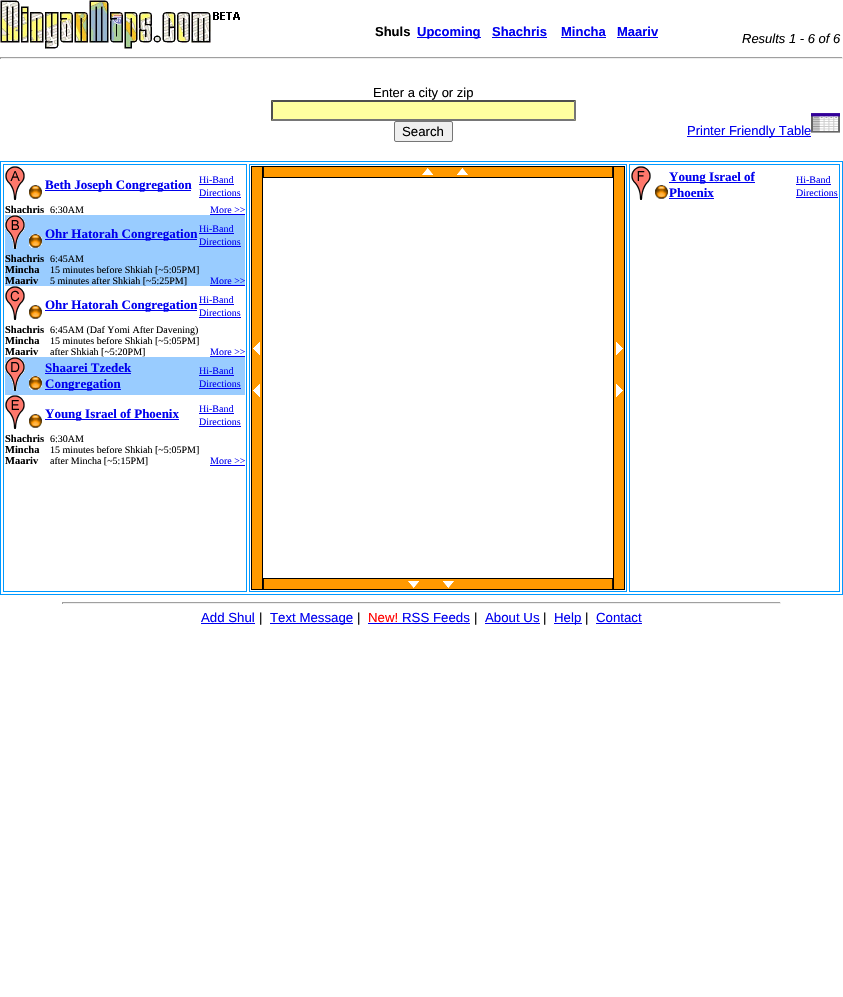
void draw(SkCanvas* canvas) {
	SkPaint paint;
	paint.setAntiAlias(true);
	auto svgPath = [&](const char* data, bool evenOdd = false) {
		SkPath result = *SkParsePath::FromSVGString(data);
		if (evenOdd) result.setFillType(SkPathFillType::kEvenOdd);
		return result;
	};
	canvas->clear(0xffffffff);
	canvas->drawImageRect(SkImages::DeferredFromEncodedData(SkData::MakeFromFileName("img1.png")), SkRect::MakeXYWH(0, 0, 240, 49), SkSamplingOptions());
	SkFont f1(fontMgr->matchFamilyStyle("Liberation Sans", SkFontStyle::Bold()), 13);
	f1.setSubpixel(true);
	paint.setColor(0xff000000);
	canvas->drawString("Shuls", 375, 36, f1, paint);
	paint.setColor(0xff0000ee);
	canvas->drawRect(SkRect::MakeXYWH(417, 37, 64, 1), paint);
	canvas->drawString("Upcoming", 417, 36, f1, paint);
	canvas->drawString("Shachris", 492, 36, f1, paint);
	canvas->drawRect(SkRect::MakeXYWH(492, 37, 55, 1), paint);
	canvas->drawString("Mincha", 561, 36, f1, paint);
	canvas->drawRect(SkRect::MakeXYWH(561, 37, 45, 1), paint);
	canvas->drawString("Maariv", 617, 36, f1, paint);
	canvas->drawRect(SkRect::MakeXYWH(617, 37, 41, 1), paint);
	SkFont f2(fontMgr->matchFamilyStyle("Liberation Sans", SkFontStyle::Italic()), 13);
	f2.setSubpixel(true);
	paint.setColor(0xff000000);
	canvas->drawString("Results 1 - 6 of 6", 742, 43, f2, paint);
	paint.setColor(0xff9f9f9f);
	canvas->drawRect(SkRect::MakeXYWH(0, 57, 843, 1), paint);
	paint.setColor(0xffeeeeee);
	canvas->drawRect(SkRect::MakeXYWH(842, 57, 1, 2), paint);
	canvas->drawRect(SkRect::MakeXYWH(0, 58, 843, 1), paint);
	paint.setColor(0xff9f9f9f);
	canvas->drawRect(SkRect::MakeXYWH(0, 57, 1, 2), paint);
	SkFont f3(fontMgr->matchFamilyStyle("Liberation Sans", SkFontStyle::Normal()), 13);
	f3.setSubpixel(true);
	paint.setColor(0xff000000);
	canvas->drawString("Enter a city or zip", 373, 97, f3, paint);
	paint.setColor(0xffffffa0);
	canvas->drawRect(SkRect::MakeXYWH(271, 100, 305, 21), paint);
	paint.setColor(0xff4f4f4f);
	canvas->drawPath(svgPath("M271 100H576L574 102H273Z"), paint);
	paint.setColor(0xff767676);
	canvas->drawPath(svgPath("M576 100V121L574 119V102Z"), paint);
	canvas->drawPath(svgPath("M576 121H271L273 119H574Z"), paint);
	paint.setColor(0xff4f4f4f);
	canvas->drawPath(svgPath("M271 121V100L273 102V119Z"), paint);
	paint.setColor(0xffefefef);
	canvas->drawRoundRect(SkRect::MakeXYWH(394.5, 121.5, 58, 20), 1.5, 1.5, paint);
	paint.setStroke(true);
	paint.setStrokeWidth(1);
	paint.setColor(0xff767676);
	canvas->drawRoundRect(SkRect::MakeXYWH(394.5, 121.5, 58, 20), 1.5, 1.5, paint);
	SkFont f4(fontMgr->matchFamilyStyle("Liberation Sans", SkFontStyle::Normal()), 13.25);
	f4.setSubpixel(true);
	paint.setStroke(false);
	paint.setColor(0xff000000);
	canvas->drawString("Search", 402, 136, f4, paint);
	paint.setColor(0xff0000ee);
	canvas->drawRect(SkRect::MakeXYWH(687, 136, 124, 1), paint);
	canvas->drawString("Printer Friendly Table", 687, 135, f3, paint);
	canvas->drawImageRect(SkImages::DeferredFromEncodedData(SkData::MakeFromFileName("img2.png")), SkRect::MakeXYWH(811, 113, 29, 20), SkSamplingOptions());
	paint.setStroke(true);
	paint.setColor(0xff0099ff);
	canvas->drawRect(SkRect::MakeXYWH(0.5, 161.5, 842, 433), paint);
	canvas->drawRect(SkRect::MakeXYWH(3.5, 164.5, 243, 427), paint);
	canvas->drawImageRect(SkImages::DeferredFromEncodedData(SkData::MakeFromFileName("img3.png")), SkRect::MakeXYWH(5, 166, 20, 34), SkSamplingOptions());
	canvas->drawImageRect(SkImages::DeferredFromEncodedData(SkData::MakeFromFileName("img4.png")), SkRect::MakeXYWH(29, 185, 13, 14), SkSamplingOptions());
	paint.setStroke(false);
	paint.setColor(0xff0000ee);
	canvas->drawRect(SkRect::MakeXYWH(45, 190, 146, 1), paint);
	SkFont f5(fontMgr->matchFamilyStyle("Liberation Serif", SkFontStyle::Bold()), 13);
	f5.setSubpixel(true);
	canvas->drawString("Beth Joseph Congregation", 45, 189, f5, paint);
	SkFont f6(fontMgr->matchFamilyStyle("Liberation Serif", SkFontStyle::Normal()), 10);
	f6.setSubpixel(true);
	canvas->drawString("Hi-Band", 199, 183, f6, paint);
	canvas->drawRect(SkRect::MakeXYWH(199, 184, 35, 1), paint);
	canvas->drawString("Directions", 199, 196, f6, paint);
	canvas->drawRect(SkRect::MakeXYWH(199, 197, 42, 1), paint);
	SkFont f7(fontMgr->matchFamilyStyle("Liberation Serif", SkFontStyle::Bold()), 10.5);
	f7.setSubpixel(true);
	paint.setColor(0xff000000);
	canvas->drawString("Shachris", 5, 213, f7, paint);
	canvas->drawString("6:30AM", 50, 213, f6, paint);
	paint.setColor(0xff0000ee);
	canvas->drawString("More >>", 210, 213, f6, paint);
	canvas->drawRect(SkRect::MakeXYWH(210, 214, 35, 1), paint);
	paint.setColor(0xff99ccff);
	canvas->drawRect(SkRect::MakeXYWH(5, 215, 240, 71), paint);
	canvas->drawImageRect(SkImages::DeferredFromEncodedData(SkData::MakeFromFileName("img5.png")), SkRect::MakeXYWH(5, 215, 20, 34), SkSamplingOptions());
	canvas->drawImageRect(SkImages::DeferredFromEncodedData(SkData::MakeFromFileName("img6.png")), SkRect::MakeXYWH(29, 234, 13, 14), SkSamplingOptions());
	paint.setColor(0xff0000ee);
	canvas->drawRect(SkRect::MakeXYWH(45, 239, 152, 1), paint);
	canvas->drawString("Ohr Hatorah Congregation", 45, 238, f5, paint);
	canvas->drawString("Hi-Band", 199, 232, f6, paint);
	canvas->drawRect(SkRect::MakeXYWH(199, 233, 35, 1), paint);
	canvas->drawString("Directions", 199, 245, f6, paint);
	canvas->drawRect(SkRect::MakeXYWH(199, 246, 42, 1), paint);
	paint.setColor(0xff000000);
	canvas->drawString("Shachris", 5, 262, f7, paint);
	canvas->drawString("6:45AM", 50, 262, f6, paint);
	canvas->drawString("Mincha", 5, 273, f7, paint);
	canvas->drawString("15 minutes before Shkiah [~5:05PM]", 50, 273, f6, paint);
	canvas->drawString("Maariv", 5, 284, f7, paint);
	canvas->drawString("5 minutes after Shkiah [~5:25PM]", 50, 284, f6, paint);
	paint.setColor(0xff0000ee);
	canvas->drawString("More >>", 210, 284, f6, paint);
	canvas->drawRect(SkRect::MakeXYWH(210, 285, 35, 1), paint);
	canvas->drawImageRect(SkImages::DeferredFromEncodedData(SkData::MakeFromFileName("img7.png")), SkRect::MakeXYWH(5, 286, 20, 34), SkSamplingOptions());
	canvas->drawImageRect(SkImages::DeferredFromEncodedData(SkData::MakeFromFileName("img4.png")), SkRect::MakeXYWH(29, 305, 13, 14), SkSamplingOptions());
	canvas->drawRect(SkRect::MakeXYWH(45, 310, 152, 1), paint);
	canvas->drawString("Ohr Hatorah Congregation", 45, 309, f5, paint);
	canvas->drawString("Hi-Band", 199, 303, f6, paint);
	canvas->drawRect(SkRect::MakeXYWH(199, 304, 35, 1), paint);
	canvas->drawString("Directions", 199, 316, f6, paint);
	canvas->drawRect(SkRect::MakeXYWH(199, 317, 42, 1), paint);
	paint.setColor(0xff000000);
	canvas->drawString("Shachris", 5, 333, f7, paint);
	canvas->drawString("6:45AM (Daf Yomi After Davening)", 50, 333, f6, paint);
	canvas->drawString("Mincha", 5, 344, f7, paint);
	canvas->drawString("15 minutes before Shkiah [~5:05PM]", 50, 344, f6, paint);
	canvas->drawString("Maariv", 5, 355, f7, paint);
	canvas->drawString("after Shkiah [~5:20PM]", 50, 355, f6, paint);
	paint.setColor(0xff0000ee);
	canvas->drawString("More >>", 210, 355, f6, paint);
	canvas->drawRect(SkRect::MakeXYWH(210, 356, 35, 1), paint);
	paint.setColor(0xff99ccff);
	canvas->drawRect(SkRect::MakeXYWH(5, 357, 240, 38), paint);
	canvas->drawImageRect(SkImages::DeferredFromEncodedData(SkData::MakeFromFileName("img8.png")), SkRect::MakeXYWH(5, 357, 20, 34), SkSamplingOptions());
	canvas->drawImageRect(SkImages::DeferredFromEncodedData(SkData::MakeFromFileName("img6.png")), SkRect::MakeXYWH(29, 376, 13, 14), SkSamplingOptions());
	paint.setColor(0xff0000ee);
	canvas->drawString("Shaarei Tzedek", 45, 372, f5, paint);
	canvas->drawRect(SkRect::MakeXYWH(45, 373, 86, 1), paint);
	canvas->drawRect(SkRect::MakeXYWH(45, 389, 76, 1), paint);
	canvas->drawString("Congregation", 45, 388, f5, paint);
	canvas->drawString("Hi-Band", 199, 374, f6, paint);
	canvas->drawRect(SkRect::MakeXYWH(199, 375, 35, 1), paint);
	canvas->drawString("Directions", 199, 387, f6, paint);
	canvas->drawRect(SkRect::MakeXYWH(199, 388, 42, 1), paint);
	canvas->drawImageRect(SkImages::DeferredFromEncodedData(SkData::MakeFromFileName("img9.png")), SkRect::MakeXYWH(5, 395, 20, 34), SkSamplingOptions());
	canvas->drawImageRect(SkImages::DeferredFromEncodedData(SkData::MakeFromFileName("img4.png")), SkRect::MakeXYWH(29, 414, 13, 14), SkSamplingOptions());
	canvas->drawRect(SkRect::MakeXYWH(45, 419, 134, 1), paint);
	canvas->drawString("Young Israel of Phoenix", 45, 418, f5, paint);
	canvas->drawString("Hi-Band", 199, 412, f6, paint);
	canvas->drawRect(SkRect::MakeXYWH(199, 413, 35, 1), paint);
	canvas->drawString("Directions", 199, 425, f6, paint);
	canvas->drawRect(SkRect::MakeXYWH(199, 426, 42, 1), paint);
	paint.setColor(0xff000000);
	canvas->drawString("Shachris", 5, 442, f7, paint);
	canvas->drawString("6:30AM", 50, 442, f6, paint);
	canvas->drawString("Mincha", 5, 453, f7, paint);
	canvas->drawString("15 minutes before Shkiah [~5:05PM]", 50, 453, f6, paint);
	canvas->drawString("Maariv", 5, 464, f7, paint);
	canvas->drawString("after Mincha [~5:15PM]", 50, 464, f6, paint);
	paint.setColor(0xff0000ee);
	canvas->drawString("More >>", 210, 464, f6, paint);
	canvas->drawRect(SkRect::MakeXYWH(210, 465, 35, 1), paint);
	paint.setStroke(true);
	paint.setColor(0xff0099ff);
	canvas->drawRect(SkRect::MakeXYWH(249.5, 164.5, 377, 427), paint);
	canvas->drawImageRect(SkImages::DeferredFromEncodedData(SkData::MakeFromFileName("img10.png")), SkRect::MakeXYWH(251, 166, 12, 424), SkSamplingOptions());
	canvas->drawImageRect(SkImages::DeferredFromEncodedData(SkData::MakeFromFileName("img11.png")), SkRect::MakeXYWH(263, 166, 350, 12), SkSamplingOptions());
	canvas->drawImageRect(SkImages::DeferredFromEncodedData(SkData::MakeFromFileName("img12.png")), SkRect::MakeXYWH(613, 166, 12, 424), SkSamplingOptions());
	canvas->drawImageRect(SkImages::DeferredFromEncodedData(SkData::MakeFromFileName("img13.png")), SkRect::MakeXYWH(263, 578, 350, 12), SkSamplingOptions());
	canvas->drawRect(SkRect::MakeXYWH(629.5, 164.5, 210, 427), paint);
	canvas->drawImageRect(SkImages::DeferredFromEncodedData(SkData::MakeFromFileName("img14.png")), SkRect::MakeXYWH(631, 166, 20, 34), SkSamplingOptions());
	canvas->drawImageRect(SkImages::DeferredFromEncodedData(SkData::MakeFromFileName("img4.png")), SkRect::MakeXYWH(655, 185, 13, 14), SkSamplingOptions());
	paint.setStroke(false);
	paint.setColor(0xff0000ee);
	canvas->drawRect(SkRect::MakeXYWH(669, 182, 86, 1), paint);
	canvas->drawString("Young Israel of", 669, 181, f5, paint);
	canvas->drawString("Phoenix", 669, 197, f5, paint);
	canvas->drawRect(SkRect::MakeXYWH(669, 198, 45, 1), paint);
	canvas->drawString("Hi-Band", 796, 183, f6, paint);
	canvas->drawRect(SkRect::MakeXYWH(796, 184, 35, 1), paint);
	canvas->drawString("Directions", 796, 196, f6, paint);
	canvas->drawRect(SkRect::MakeXYWH(796, 197, 42, 1), paint);
	paint.setColor(0xff9f9f9f);
	canvas->drawRect(SkRect::MakeXYWH(62, 602, 719, 1), paint);
	paint.setColor(0xffeeeeee);
	canvas->drawRect(SkRect::MakeXYWH(780, 602, 1, 2), paint);
	canvas->drawRect(SkRect::MakeXYWH(62, 603, 719, 1), paint);
	paint.setColor(0xff9f9f9f);
	canvas->drawRect(SkRect::MakeXYWH(62, 602, 1, 2), paint);
	paint.setColor(0xff0000ee);
	canvas->drawString("Add Shul", 201, 622, f4, paint);
	canvas->drawRect(SkRect::MakeXYWH(201, 623, 54, 1), paint);
	paint.setColor(0xff000000);
	canvas->drawString("|", 259, 622, f4, paint);
	paint.setColor(0xff0000ee);
	canvas->drawRect(SkRect::MakeXYWH(270, 623, 83, 1), paint);
	canvas->drawString("Text Message", 270, 622, f4, paint);
	paint.setColor(0xff000000);
	canvas->drawString("|", 357, 622, f4, paint);
	paint.setColor(0xffff0000);
	canvas->drawString("New!", 368, 622, f4, paint);
	paint.setColor(0xff0000ee);
	canvas->drawRect(SkRect::MakeXYWH(368, 623, 102, 1), paint);
	canvas->drawString("RSS Feeds", 402, 622, f4, paint);
	paint.setColor(0xff000000);
	canvas->drawString("|", 474, 622, f4, paint);
	paint.setColor(0xff0000ee);
	canvas->drawString("About Us", 485, 622, f4, paint);
	canvas->drawRect(SkRect::MakeXYWH(485, 623, 55, 1), paint);
	paint.setColor(0xff000000);
	canvas->drawString("|", 543, 622, f4, paint);
	paint.setColor(0xff0000ee);
	canvas->drawRect(SkRect::MakeXYWH(554, 623, 28, 1), paint);
	canvas->drawString("Help", 554, 622, f4, paint);
	paint.setColor(0xff000000);
	canvas->drawString("|", 585, 622, f4, paint);
	paint.setColor(0xff0000ee);
	canvas->drawString("Contact", 596, 622, f4, paint);
	canvas->drawRect(SkRect::MakeXYWH(596, 623, 46, 1), paint);
}
